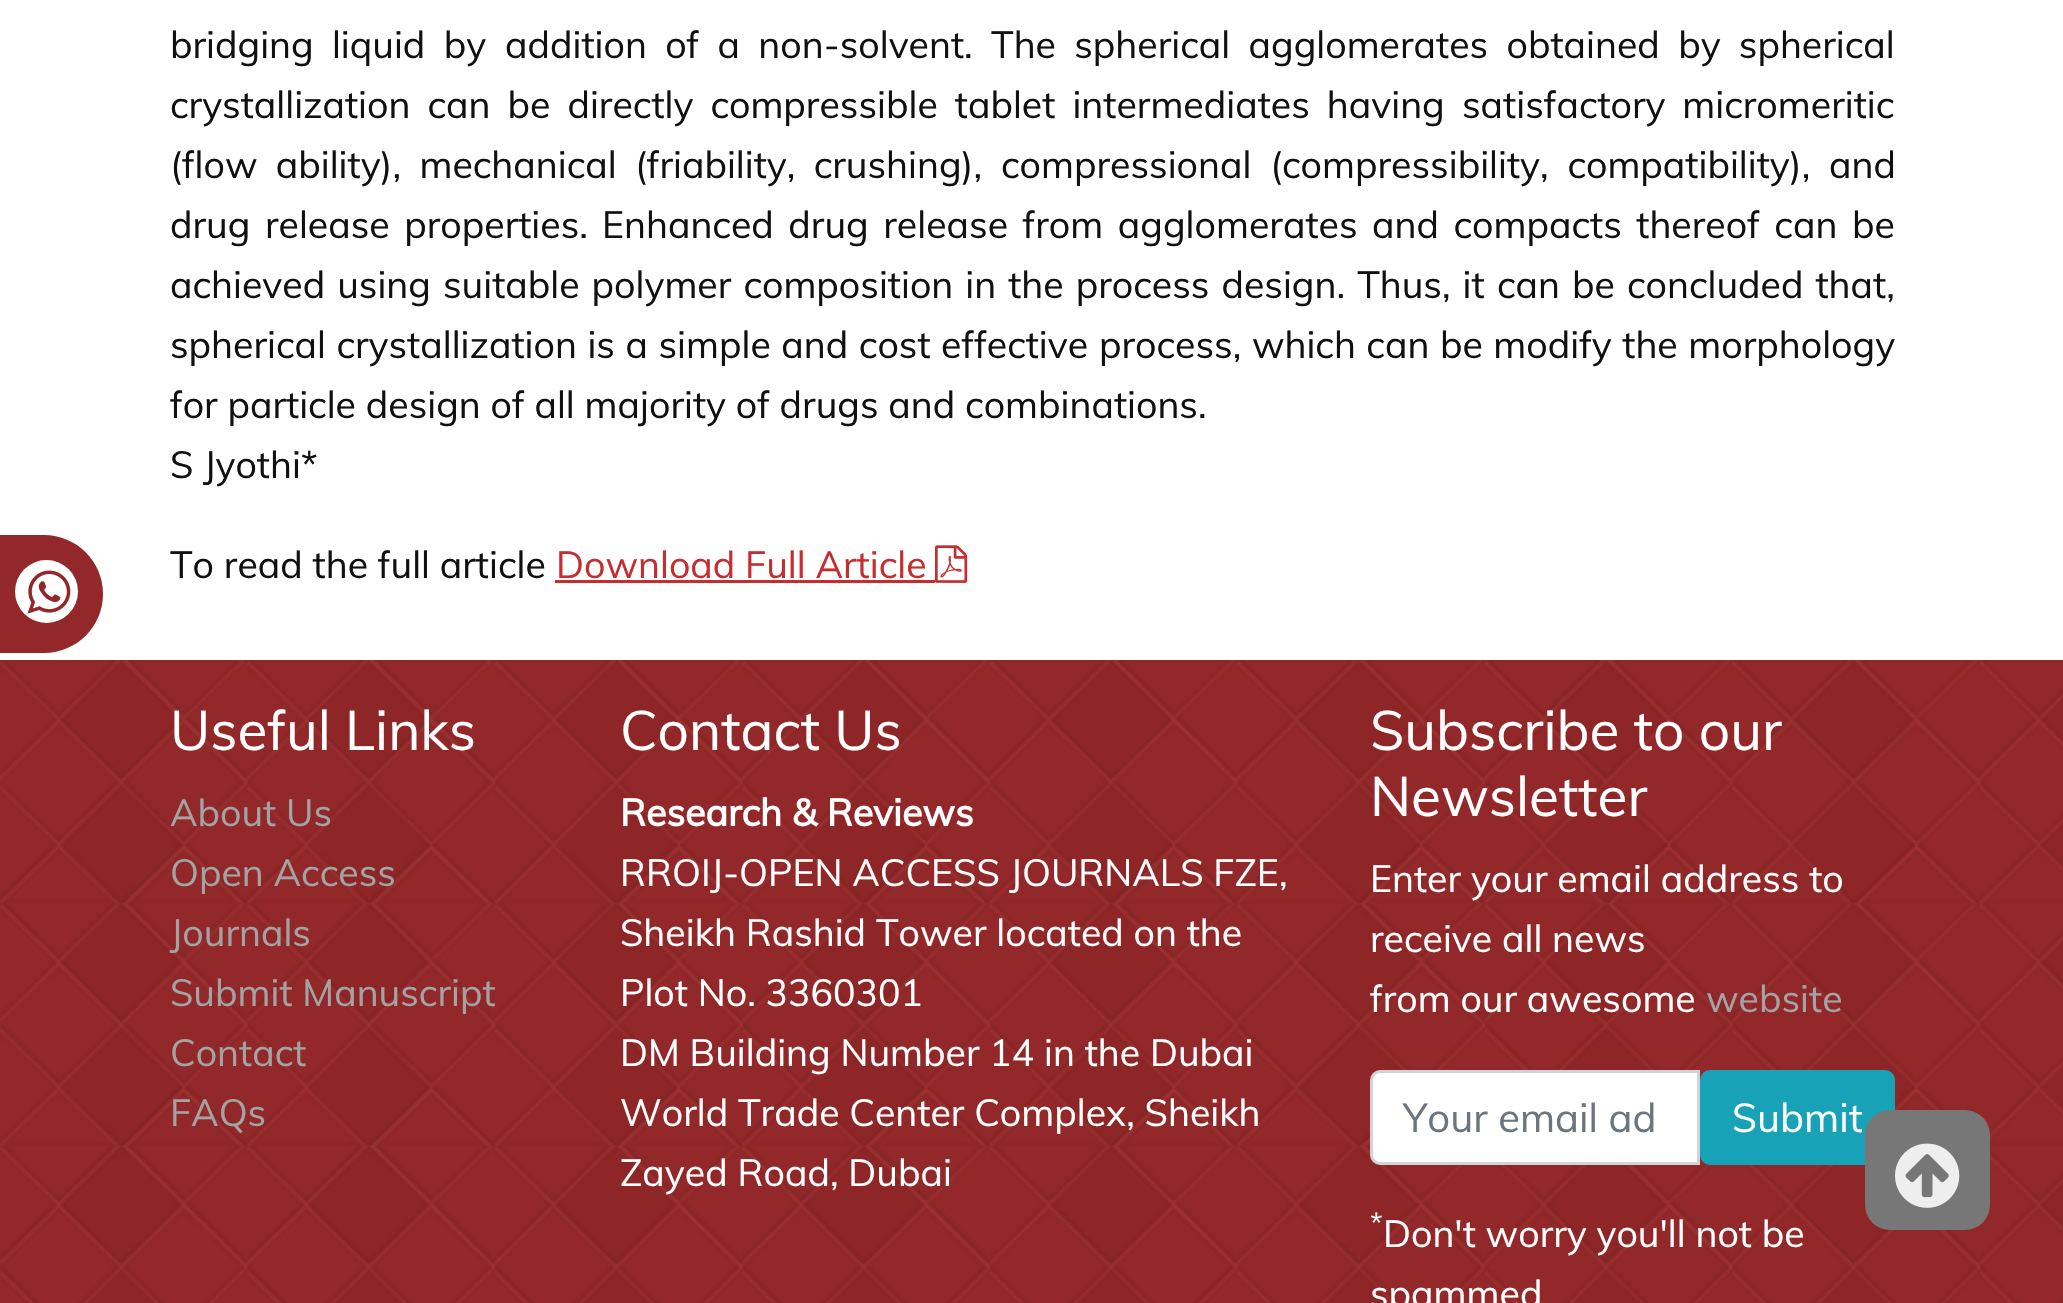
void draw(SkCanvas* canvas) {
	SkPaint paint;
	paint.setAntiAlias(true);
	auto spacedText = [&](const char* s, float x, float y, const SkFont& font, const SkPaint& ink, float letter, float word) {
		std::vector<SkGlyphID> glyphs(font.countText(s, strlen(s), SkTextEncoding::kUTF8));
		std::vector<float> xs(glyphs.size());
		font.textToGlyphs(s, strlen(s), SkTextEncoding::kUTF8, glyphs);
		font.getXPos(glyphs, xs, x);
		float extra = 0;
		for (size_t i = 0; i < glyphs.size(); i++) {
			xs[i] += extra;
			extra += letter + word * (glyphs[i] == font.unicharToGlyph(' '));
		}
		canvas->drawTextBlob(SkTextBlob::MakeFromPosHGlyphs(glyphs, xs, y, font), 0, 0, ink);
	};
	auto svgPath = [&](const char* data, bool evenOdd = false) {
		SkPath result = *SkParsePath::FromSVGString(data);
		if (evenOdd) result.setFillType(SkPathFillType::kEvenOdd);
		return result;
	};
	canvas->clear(0xffffffff);
	SkFont f1(fontMgr->matchFamilyStyle("Muli", SkFontStyle::Normal()), 37.5);
	f1.setSubpixel(true);
	paint.setColor(0xff101010);
	spacedText("bridging liquid by", 170, 58, f1, paint, 0, 8.5);
	spacedText("addition of a non-solvent. The spherical agglomerates obtained by spherical", 505, 58, f1, paint, 0, 8.5);
	spacedText("crystallization can be directly compressible tablet intermediates having", 170, 118, f1, paint, 0, 7.25);
	spacedText("satisfactory micromeritic", 1462, 118, f1, paint, 0, 7);
	spacedText("(flow ability), mechanical (friability, crushing),", 170, 178, f1, paint, 0, 8.5);
	spacedText("compressional (compressibility, compatibility), and", 1001, 178, f1, paint, 0, 9);
	spacedText("drug release properties.", 170, 238, f1, paint, 0, 4.75);
	spacedText("Enhanced drug release from agglomerates and compacts thereof can be", 602, 238, f1, paint, 0, 4.75);
	spacedText("achieved using suitable polymer composition in the process design. Thus, it", 170, 298, f1, paint, 0, 2.25);
	spacedText("can be concluded that,", 1497, 298, f1, paint, 0, 2.25);
	spacedText("spherical crystallization is a simple and cost effective", 170, 358, f1, paint, 0, 0.75);
	spacedText("process, which can be modify the morphology", 1099, 358, f1, paint, 0, 0.75);
	canvas->drawString("for particle design of all majority of drugs and combinations.", 170, 418, f1, paint);
	canvas->drawString("S Jyothi*", 170, 478, f1, paint);
	canvas->drawString("To read the full article", 170, 578, f1, paint);
	paint.setColor(0xffc52d2f);
	canvas->drawString("Download Full Article", 556, 578, f1, paint);
	canvas->drawRect(SkRect::MakeXYWH(555, 580, 380, 3), paint);
	canvas->drawImageRect(SkImages::DeferredFromEncodedData(SkData::MakeFromFileName("img1.png")), SkRect::MakeXYWH(935, 545, 33, 38), SkSamplingOptions());
	paint.setColor(0xff922829);
	canvas->drawPath(svgPath("M-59 535H44C76.5 535 103 561.5 103 594C103 626.5 76.5 653 44 653H-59Z"), paint);
	paint.setColor(0xffffffff);
	canvas->drawCircle(46.5, 591.5, 31.5, paint);
	canvas->drawImageRect(SkImages::DeferredFromEncodedData(SkData::MakeFromFileName("img2.png")), SkRect::MakeXYWH(27, 570, 44, 44), SkSamplingOptions());
	canvas->drawImageRect(SkImages::DeferredFromEncodedData(SkData::MakeFromFileName("img3.png")), SkRect::MakeXYWH(0, 660, 2063, 643), SkSamplingOptions());
	SkFont f2(fontMgr->matchFamilyStyle("Muli", SkFontStyle::Normal()), 55);
	f2.setSubpixel(true);
	canvas->drawString("Useful Links", 170, 750, f2, paint);
	paint.setColor(0xffa3a3a3);
	canvas->drawString("About Us", 170, 826, f1, paint);
	canvas->drawString("Open Access", 170, 886, f1, paint);
	canvas->drawString("Journals", 170, 946, f1, paint);
	canvas->drawString("Submit Manuscript", 170, 1006, f1, paint);
	canvas->drawString("Contact", 170, 1066, f1, paint);
	canvas->drawString("FAQs", 170, 1126, f1, paint);
	paint.setColor(0xffffffff);
	canvas->drawString("Contact Us", 620, 750, f2, paint);
	SkFont f3(fontMgr->matchFamilyStyle("Muli", SkFontStyle::Bold()), 37.5);
	f3.setSubpixel(true);
	canvas->drawString("Research & Reviews", 620, 826, f3, paint);
	canvas->drawString("RROIJ-OPEN ACCESS JOURNALS FZE,", 620, 886, f1, paint);
	canvas->drawString("Sheikh Rashid Tower located on the", 620, 946, f1, paint);
	canvas->drawString("Plot No. 3360301", 620, 1006, f1, paint);
	canvas->drawString("DM Building Number 14 in the Dubai", 620, 1066, f1, paint);
	canvas->drawString("World Trade Center Complex, Sheikh", 620, 1126, f1, paint);
	canvas->drawString("Zayed Road, Dubai", 620, 1186, f1, paint);
	canvas->drawString("Subscribe to our", 1370, 750, f2, paint);
	canvas->drawString("Newsletter", 1370, 816, f2, paint);
	canvas->drawString("Enter your email address to", 1370, 892, f1, paint);
	canvas->drawString("receive all news", 1370, 952, f1, paint);
	canvas->drawString("from our awesome", 1370, 1012, f1, paint);
	paint.setColor(0xffa3a3a3);
	canvas->drawString("website", 1706, 1012, f1, paint);
	paint.setColor(0xffffffff);
	canvas->drawPath(svgPath("M1380 1071.5H1698.5V1163.5H1380C1375.5 1163.5 1371.5 1159.5 1371.5 1155V1080C1371.5 1075.5 1375.5 1071.5 1380 1071.5Z"), paint);
	paint.setStroke(true);
	paint.setStrokeWidth(3);
	paint.setColor(0xffced4da);
	canvas->drawPath(svgPath("M1380 1071.5H1698.5V1163.5H1380C1375.5 1163.5 1371.5 1159.5 1371.5 1155V1080C1371.5 1075.5 1375.5 1071.5 1380 1071.5Z"), paint);
	SkFont f4(fontMgr->matchFamilyStyle("Muli", SkFontStyle::Normal()), 40);
	f4.setSubpixel(true);
	paint.setStroke(false);
	paint.setColor(0xff6c757d);
	canvas->drawString("Your email ad", 1403, 1132, f4, paint);
	paint.setColor(0xff17a2b8);
	canvas->drawRoundRect(SkRect::MakeXYWH(1701.5, 1071.5, 192, 92), 8.5, 8.5, paint);
	paint.setStroke(true);
	canvas->drawRoundRect(SkRect::MakeXYWH(1701.5, 1071.5, 192, 92), 8.5, 8.5, paint);
	paint.setStroke(false);
	paint.setColor(0xffffffff);
	canvas->drawString("Submit", 1732, 1132, f4, paint);
	SkFont f5(fontMgr->matchFamilyStyle("Muli", SkFontStyle::Normal()), 28);
	f5.setSubpixel(true);
	canvas->drawString("*", 1370, 1233, f5, paint);
	canvas->drawString("Don't worry you'll not be", 1383, 1247, f1, paint);
	canvas->drawString("spammed", 1370, 1307, f1, paint);
	paint.setColor(0xff777777);
	canvas->drawRoundRect(SkRect::MakeXYWH(1865, 1110, 125, 120), 25, 25, paint);
	canvas->drawImageRect(SkImages::DeferredFromEncodedData(SkData::MakeFromFileName("img4.png")), SkRect::MakeXYWH(1895, 1143, 65, 65), SkSamplingOptions());
}
